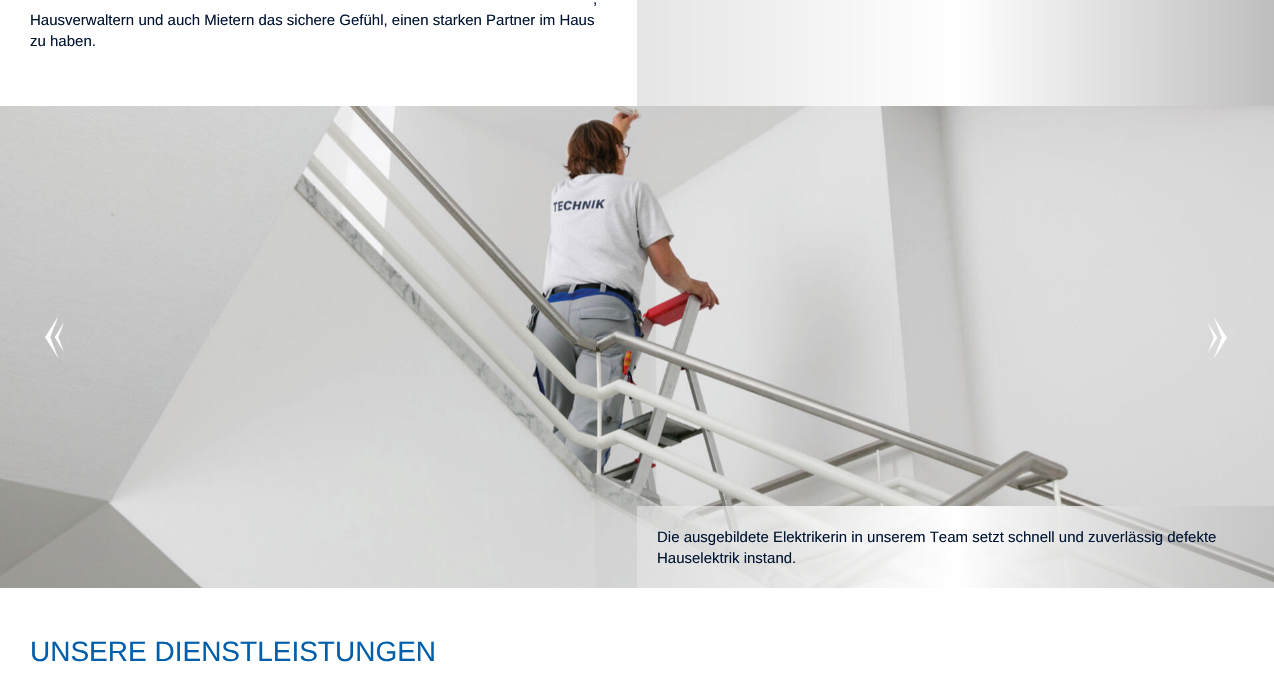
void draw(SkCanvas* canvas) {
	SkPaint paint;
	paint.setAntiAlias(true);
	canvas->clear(0xffffffff);
	SkFont f1(fontMgr->matchFamilyStyle("Liberation Sans", SkFontStyle::Normal()), 15);
	f1.setSubpixel(true);
	paint.setColor(0xff001431);
	canvas->drawString(",", 593, 4, f1, paint);
	canvas->drawString("Hausverwaltern und auch Mietern das sichere Gefühl, einen starken Partner im Haus", 30, 25, f1, paint);
	canvas->drawString("zu haben.", 30, 46, f1, paint);
	{
		const SkColor colors[] = {0xffe5e5e5, 0xffffffff, 0xffbebebe};
		const float stops[] = {0, 0.5, 1};
		const SkPoint ends[] = {{637, -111}, {1274, -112}};
		paint.setShader(SkGradientShader::MakeLinear(ends, colors, stops, 3, SkTileMode::kClamp));
		paint.setAlpha(255);
	}
	canvas->drawRect(SkRect::MakeXYWH(637, 0, 637, 106), paint);
	canvas->drawImageRect(SkImages::DeferredFromEncodedData(SkData::MakeFromFileName("img1.png")), SkRect::MakeXYWH(0, 106, 1274, 482), SkSamplingOptions());
	canvas->drawImageRect(SkImages::DeferredFromEncodedData(SkData::MakeFromFileName("img2.png")), SkRect::MakeXYWH(45, 317, 19, 41), SkSamplingOptions());
	canvas->drawImageRect(SkImages::DeferredFromEncodedData(SkData::MakeFromFileName("img3.png")), SkRect::MakeXYWH(1208, 317, 19, 41), SkSamplingOptions());
	paint.setShader(nullptr);
	paint.setColor(0xff001431);
	canvas->drawString("Die ausgebildete Elektrikerin in unserem Team setzt schnell und zuverlässig defekte", 657, 542, f1, paint);
	canvas->drawString("Hauselektrik instand.", 657, 563, f1, paint);
	SkFont f2(fontMgr->matchFamilyStyle("Liberation Sans", SkFontStyle::Normal()), 28);
	f2.setSubpixel(true);
	paint.setColor(0xff005eaa);
	canvas->drawString("UNSERE DIENSTLEISTUNGEN", 30, 661, f2, paint);
}
